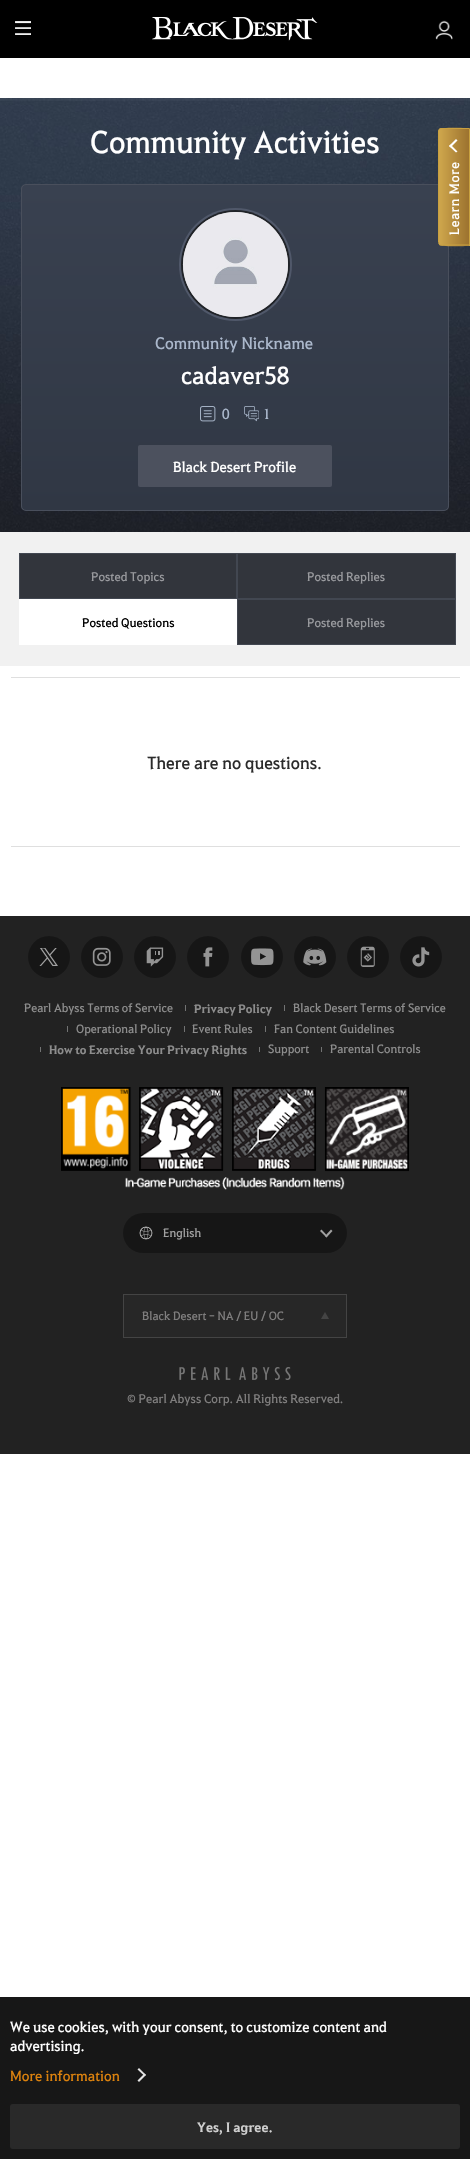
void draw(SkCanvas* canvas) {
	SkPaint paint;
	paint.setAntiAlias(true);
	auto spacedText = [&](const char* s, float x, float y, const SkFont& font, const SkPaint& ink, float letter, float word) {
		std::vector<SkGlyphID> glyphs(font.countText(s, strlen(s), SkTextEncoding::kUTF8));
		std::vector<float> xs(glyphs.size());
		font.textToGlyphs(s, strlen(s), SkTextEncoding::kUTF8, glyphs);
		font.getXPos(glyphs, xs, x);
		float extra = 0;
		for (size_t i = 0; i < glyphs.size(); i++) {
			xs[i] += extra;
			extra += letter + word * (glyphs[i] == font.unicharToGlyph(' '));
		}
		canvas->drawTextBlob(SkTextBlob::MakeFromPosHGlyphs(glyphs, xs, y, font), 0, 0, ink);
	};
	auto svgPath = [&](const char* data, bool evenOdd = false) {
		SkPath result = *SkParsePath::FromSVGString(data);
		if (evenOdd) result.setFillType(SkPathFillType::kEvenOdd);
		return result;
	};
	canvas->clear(0xffffffff);
	paint.setColor(0xff000000);
	canvas->drawRect(SkRect::MakeXYWH(0, 0, 470, 58), paint);
	canvas->drawImageRect(SkImages::DeferredFromEncodedData(SkData::MakeFromFileName("img1.png")), SkRect::MakeXYWH(15, 21, 16, 14), SkSamplingOptions());
	canvas->drawImageRect(SkImages::DeferredFromEncodedData(SkData::MakeFromFileName("img2.png")), SkRect::MakeXYWH(152, 17, 166, 24), SkSamplingOptions());
	canvas->drawImageRect(SkImages::DeferredFromEncodedData(SkData::MakeFromFileName("img3.png")), SkRect::MakeXYWH(435, 20, 18, 20), SkSamplingOptions());
	canvas->drawImageRect(SkImages::DeferredFromEncodedData(SkData::MakeFromFileName("img4.png")), SkRect::MakeXYWH(0, 98, 470, 434), SkSamplingOptions());
	SkFont f1(fontMgr->matchFamilyStyle("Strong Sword", SkFontStyle::Normal()), 30.25);
	f1.setSubpixel(true);
	paint.setColor(0xffffffff);
	canvas->drawString("Community Activities", 90, 153, f1, paint);
	canvas->save();
	canvas->clipPath(svgPath("M26 184H444C447 184 449 186 449 189V506C449 509 447 511 444 511H26C23 511 21 509 21 506V189C21 186 23 184 26 184Z"), true);
	{
		const SkColor colors[] = {0xff394150, 0xff303744};
		const float stops[] = {0, 1};
		const SkPoint ends[] = {{235, 185}, {235, 510}};
		paint.setShader(SkGradientShader::MakeLinear(ends, colors, stops, 2, SkTileMode::kClamp));
		paint.setAlpha(255);
	}
	canvas->drawRect(SkRect::MakeXYWH(21, 185, 428, 325), paint);
	canvas->restore();
	paint.setStroke(true);
	paint.setStrokeWidth(1);
	paint.setShader(nullptr);
	paint.setColor(0xff494f5c);
	canvas->drawRoundRect(SkRect::MakeXYWH(21.5, 184.5, 427, 326), 4.5, 4.5, paint);
	paint.setStroke(false);
	paint.setColor(0xff50586a);
	canvas->drawCircle(235.5, 264.5, 56.5, paint);
	paint.setColor(0xff202328);
	canvas->drawCircle(235.5, 264.5, 54.5, paint);
	paint.setColor(0xffcccccc);
	canvas->drawCircle(235.5, 264.5, 52.5, paint);
	canvas->drawImageRect(SkImages::DeferredFromEncodedData(SkData::MakeFromFileName("img5.png")), SkRect::MakeXYWH(182, 212, 106, 105), SkSamplingOptions());
	SkFont f2(fontMgr->matchFamilyStyle("Strong Sword", SkFontStyle::Normal()), 16);
	f2.setSubpixel(true);
	paint.setColor(0xffabb8cc);
	canvas->drawString("Community Nickname", 155, 349, f2, paint);
	SkFont f3(fontMgr->matchFamilyStyle("Strong Sword", SkFontStyle::Normal()), 23.5);
	f3.setSubpixel(true);
	paint.setColor(0xffffffff);
	canvas->drawString("cadaver58", 181, 384, f3, paint);
	canvas->drawImageRect(SkImages::DeferredFromEncodedData(SkData::MakeFromFileName("img6.png")), SkRect::MakeXYWH(200, 406, 16, 16), SkSamplingOptions());
	SkFont f4(fontMgr->matchFamilyStyle("Strong Sword", SkFontStyle::Normal()), 14);
	f4.setSubpixel(true);
	paint.setColor(0xffabb8cc);
	canvas->drawString("0", 222, 419, f4, paint);
	canvas->drawImageRect(SkImages::DeferredFromEncodedData(SkData::MakeFromFileName("img7.png")), SkRect::MakeXYWH(244, 406, 15, 16), SkSamplingOptions());
	canvas->drawString("1", 263, 419, f4, paint);
	paint.setColor(0xff4c515e);
	canvas->drawRoundRect(SkRect::MakeXYWH(138, 445, 194, 42), 2, 2, paint);
	paint.setColor(0xffffffff);
	canvas->drawString("Black Desert Profile", 173, 472, f4, paint);
	paint.setColor(0xfff1f1f1);
	canvas->drawRect(SkRect::MakeXYWH(0, 532, 470, 134), paint);
	paint.setColor(0xff32353c);
	canvas->drawRect(SkRect::MakeXYWH(19.5, 553.5, 217, 45), paint);
	paint.setStroke(true);
	paint.setColor(0xff424751);
	canvas->drawRect(SkRect::MakeXYWH(19.5, 553.5, 217, 45), paint);
	SkFont f5(fontMgr->matchFamilyStyle("Strong Sword", SkFontStyle::Normal()), 12);
	f5.setSubpixel(true);
	paint.setStroke(false);
	paint.setColor(0xff999a9e);
	canvas->drawString("Posted Topics", 91, 581, f5, paint);
	paint.setColor(0xff32353c);
	canvas->drawRect(SkRect::MakeXYWH(237.5, 553.5, 218, 45), paint);
	paint.setStroke(true);
	paint.setColor(0xff424751);
	canvas->drawRect(SkRect::MakeXYWH(237.5, 553.5, 218, 45), paint);
	paint.setStroke(false);
	paint.setColor(0xff999a9e);
	canvas->drawString("Posted Replies", 307, 581, f5, paint);
	paint.setColor(0xffffffff);
	canvas->drawRect(SkRect::MakeXYWH(19, 599, 218, 46), paint);
	paint.setColor(0xff000000);
	canvas->drawString("Posted Questions", 82, 627, f5, paint);
	paint.setColor(0xff32353c);
	canvas->drawRect(SkRect::MakeXYWH(237.5, 599.5, 218, 45), paint);
	paint.setStroke(true);
	paint.setColor(0xff424751);
	canvas->drawRect(SkRect::MakeXYWH(237.5, 599.5, 218, 45), paint);
	paint.setStroke(false);
	paint.setColor(0xff999a9e);
	canvas->drawString("Posted Replies", 307, 627, f5, paint);
	paint.setColor(0xffdfdfdf);
	canvas->drawRect(SkRect::MakeXYWH(11, 677, 449, 1), paint);
	canvas->drawRect(SkRect::MakeXYWH(11, 846, 449, 1), paint);
	SkFont f6(fontMgr->matchFamilyStyle("Strong Sword", SkFontStyle::Normal()), 16.75);
	f6.setSubpixel(true);
	paint.setColor(0xff2b2b2b);
	canvas->drawString("There are no questions.", 147, 769, f6, paint);
	paint.setColor(0xff222222);
	canvas->drawRect(SkRect::MakeXYWH(0, 916, 470, 538), paint);
	paint.setColor(0xff161616);
	canvas->drawCircle(49, 957, 21, paint);
	canvas->drawImageRect(SkImages::DeferredFromEncodedData(SkData::MakeFromFileName("img8.png")), SkRect::MakeXYWH(39, 948, 19, 18), SkSamplingOptions());
	canvas->drawCircle(102, 957, 21, paint);
	canvas->drawImageRect(SkImages::DeferredFromEncodedData(SkData::MakeFromFileName("img9.png")), SkRect::MakeXYWH(92, 947, 19, 19), SkSamplingOptions());
	canvas->drawCircle(155, 957, 21, paint);
	canvas->drawImageRect(SkImages::DeferredFromEncodedData(SkData::MakeFromFileName("img10.png")), SkRect::MakeXYWH(146, 947, 18, 20), SkSamplingOptions());
	canvas->drawCircle(208, 957, 21, paint);
	canvas->drawImageRect(SkImages::DeferredFromEncodedData(SkData::MakeFromFileName("img11.png")), SkRect::MakeXYWH(203, 947, 10, 20), SkSamplingOptions());
	canvas->drawCircle(262, 957, 21, paint);
	canvas->drawImageRect(SkImages::DeferredFromEncodedData(SkData::MakeFromFileName("img12.png")), SkRect::MakeXYWH(251, 948, 23, 18), SkSamplingOptions());
	canvas->drawCircle(315, 957, 21, paint);
	canvas->drawImageRect(SkImages::DeferredFromEncodedData(SkData::MakeFromFileName("img13.png")), SkRect::MakeXYWH(303, 948, 24, 18), SkSamplingOptions());
	canvas->drawCircle(368, 957, 21, paint);
	canvas->drawImageRect(SkImages::DeferredFromEncodedData(SkData::MakeFromFileName("img14.png")), SkRect::MakeXYWH(360, 946, 15, 21), SkSamplingOptions());
	canvas->drawCircle(421, 957, 21, paint);
	canvas->drawImageRect(SkImages::DeferredFromEncodedData(SkData::MakeFromFileName("img15.png")), SkRect::MakeXYWH(412, 947, 18, 20), SkSamplingOptions());
	SkFont f7(fontMgr->matchFamilyStyle("Strong Sword", SkFontStyle::Normal()), 11.6);
	f7.setSubpixel(true);
	paint.setColor(0xff8d8d8d);
	canvas->drawString("Pearl Abyss Terms of Service", 24, 1012, f7, paint);
	paint.setColor(0xff727373);
	canvas->drawRect(SkRect::MakeXYWH(185, 1005, 1, 6), paint);
	SkFont f8(fontMgr->matchFamilyStyle("Strong Sword", SkFontStyle::Bold()), 11.6);
	f8.setSubpixel(true);
	paint.setColor(0xff8d8d8d);
	canvas->drawString("Privacy Policy", 194, 1013, f8, paint);
	paint.setColor(0xff727373);
	canvas->drawRect(SkRect::MakeXYWH(284, 1005, 1, 6), paint);
	paint.setColor(0xff8d8d8d);
	canvas->drawString("Black Desert Terms of Service", 293, 1012, f7, paint);
	paint.setColor(0xff727373);
	canvas->drawRect(SkRect::MakeXYWH(67, 1026, 1, 6), paint);
	paint.setColor(0xff8d8d8d);
	canvas->drawString("Operational Policy", 76, 1033, f7, paint);
	paint.setColor(0xff727373);
	canvas->drawRect(SkRect::MakeXYWH(184, 1026, 1, 6), paint);
	paint.setColor(0xff8d8d8d);
	canvas->drawString("Event Rules", 192, 1033, f7, paint);
	paint.setColor(0xff727373);
	canvas->drawRect(SkRect::MakeXYWH(265, 1026, 1, 6), paint);
	paint.setColor(0xff8d8d8d);
	canvas->drawString("Fan Content Guidelines", 274, 1033, f7, paint);
	paint.setColor(0xff727373);
	canvas->drawRect(SkRect::MakeXYWH(40, 1047, 1, 5), paint);
	paint.setColor(0xff8d8d8d);
	canvas->drawString("How to Exercise Your Privacy Rights", 49, 1054, f8, paint);
	paint.setColor(0xff727373);
	canvas->drawRect(SkRect::MakeXYWH(259, 1047, 1, 5), paint);
	paint.setColor(0xff8d8d8d);
	canvas->drawString("Support", 268, 1053, f7, paint);
	paint.setColor(0xff727373);
	canvas->drawRect(SkRect::MakeXYWH(321, 1047, 1, 5), paint);
	paint.setColor(0xff8d8d8d);
	canvas->drawString("Parental Controls", 330, 1053, f7, paint);
	canvas->drawImageRect(SkImages::DeferredFromEncodedData(SkData::MakeFromFileName("img16.png")), SkRect::MakeXYWH(61, 1087, 348, 103), SkSamplingOptions());
	paint.setColor(0xff161616);
	canvas->drawRoundRect(SkRect::MakeXYWH(123, 1213, 224, 40), 20, 20, paint);
	canvas->drawImageRect(SkImages::DeferredFromEncodedData(SkData::MakeFromFileName("img17.png")), SkRect::MakeXYWH(139, 1226, 14, 14), SkSamplingOptions());
	paint.setColor(0xffa1a1a1);
	canvas->drawString("English", 163, 1237, f7, paint);
	canvas->drawPath(svgPath("M326.5 1237.5L320 1231L321.5 1229.5L327.5 1236Z"), paint);
	canvas->drawPath(svgPath("M326.5 1237.5L325 1236L331 1229.5L332.5 1231Z"), paint);
	paint.setColor(0xff272727);
	canvas->drawRect(SkRect::MakeXYWH(123.5, 1294.5, 223, 43), paint);
	paint.setStroke(true);
	paint.setColor(0xff444444);
	canvas->drawRect(SkRect::MakeXYWH(123.5, 1294.5, 223, 43), paint);
	paint.setStroke(false);
	paint.setColor(0xff7f7e7e);
	canvas->drawString("Black Desert - NA / EU / OC", 142, 1320, f7, paint);
	paint.setColor(0xff444444);
	canvas->drawPath(svgPath("M329 1319H321L325 1312Z"), paint);
	canvas->drawImageRect(SkImages::DeferredFromEncodedData(SkData::MakeFromFileName("img18.png")), SkRect::MakeXYWH(179, 1367, 112, 13), SkSamplingOptions());
	paint.setColor(0xff7f7e7e);
	canvas->drawString("© Pearl Abyss Corp. All Rights Reserved.", 127, 1403, f5, paint);
	{
		const SkColor colors[] = {0xffcfa74d, 0xff9c722e};
		const float stops[] = {0, 1};
		const SkPoint ends[] = {{439, 187}, {469, 187}};
		paint.setShader(SkGradientShader::MakeLinear(ends, colors, stops, 2, SkTileMode::kClamp));
		paint.setAlpha(255);
	}
	canvas->drawPath(svgPath("M469 246C465 246 441 247 439 245V129C441 127 465 128 469 128Z"), paint);
	{
		const SkColor colors[] = {0xffcfa74d, 0xff9c722e};
		const float stops[] = {0, 1};
		const SkPoint ends[] = {{469, 187}, {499, 187}};
		paint.setShader(SkGradientShader::MakeLinear(ends, colors, stops, 2, SkTileMode::kClamp));
		paint.setAlpha(255);
	}
	canvas->drawRect(SkRect::MakeXYWH(469, 245, 1, 1), paint);
	paint.setStroke(true);
	paint.setShader(nullptr);
	paint.setColor(0xffc9a140);
	canvas->drawPath(svgPath("M438.5 242.5V131C438.5 129.5 439.5 128.5 441 128.5H469.5V245H441C439.5 245 438.5 244 438.5 242.5Z"), paint);
	paint.setStroke(false);
	paint.setColor(0xffffffff);
	canvas->drawPath(svgPath("M457.5 151.5L456 152.5L449 146L450.5 144.5Z"), paint);
	canvas->drawPath(svgPath("M457.5 140.5L450.5 147.5L449 146L456 139Z"), paint);
	SkFont f9(fontMgr->matchFamilyStyle("Strong Sword", SkFontStyle::Normal()), 13);
	f9.setSubpixel(true);
	canvas->save();
	canvas->rotate(-90, 459, 235);
	spacedText("Learn More", 459, 235, f9, paint, 0.75, 0);
	canvas->restore();
	paint.setColor(0xff171717);
	canvas->drawRect(SkRect::MakeXYWH(0, 1997, 470, 162), paint);
	paint.setColor(0xffffffff);
	canvas->drawString("We use cookies, with your consent, to customize content and", 10, 2032, f4, paint);
	canvas->drawString("advertising.", 10, 2051, f4, paint);
	paint.setColor(0xffdb810d);
	canvas->drawString("More information", 10, 2081, f4, paint);
	paint.setColor(0xffe4e4e4);
	canvas->drawPath(svgPath("M139 2068L146 2075L144.5 2076L137.5 2069.5Z"), paint);
	canvas->drawPath(svgPath("M144.5 2073.5L146 2075L139 2082L137.5 2080.5Z"), paint);
	paint.setColor(0xff292929);
	canvas->drawRoundRect(SkRect::MakeXYWH(11, 2105, 448, 43), 2, 2, paint);
	paint.setStroke(true);
	paint.setStrokeWidth(2);
	canvas->drawRoundRect(SkRect::MakeXYWH(11, 2105, 448, 43), 2, 2, paint);
	SkFont f10(fontMgr->matchFamilyStyle("Strong Sword", SkFontStyle::Bold()), 13);
	f10.setSubpixel(true);
	paint.setStroke(false);
	paint.setColor(0xffcfcfcf);
	canvas->drawString("Yes, I agree.", 197, 2132, f10, paint);
}
